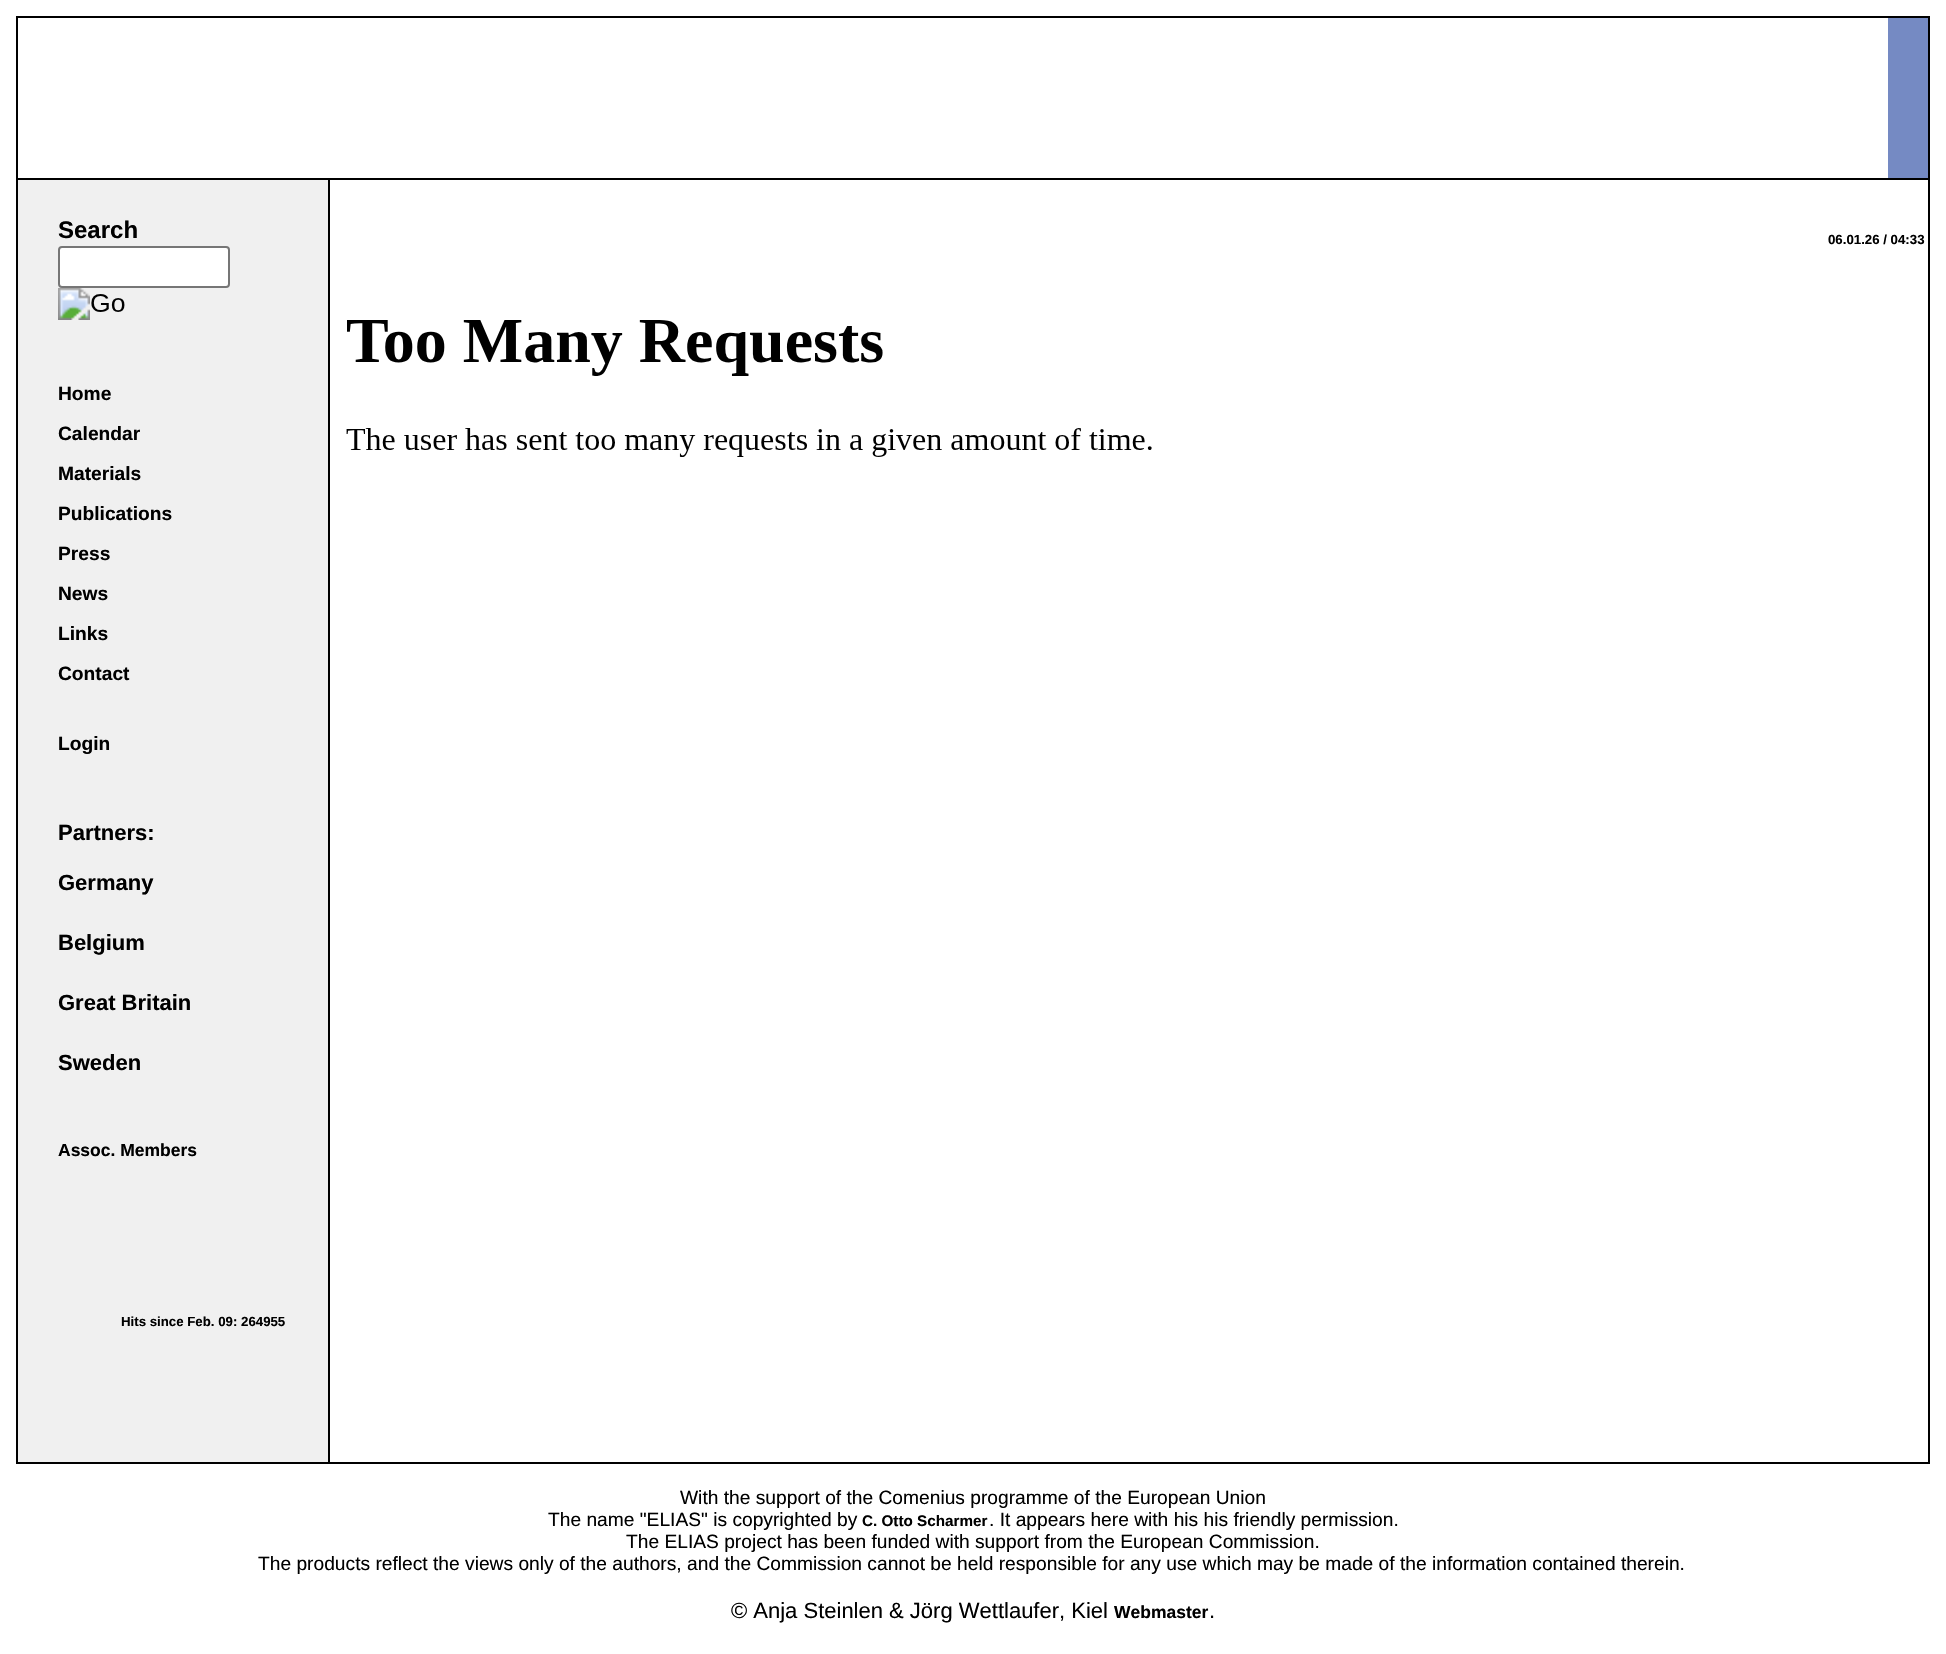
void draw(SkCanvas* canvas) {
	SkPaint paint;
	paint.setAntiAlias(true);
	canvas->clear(0xffffffff);
	paint.setColor(0xff000000);
	canvas->drawRect(SkRect::MakeXYWH(16, 16, 1914, 2), paint);
	canvas->drawRect(SkRect::MakeXYWH(16, 18, 2, 1446), paint);
	paint.setColor(0xff758ac3);
	canvas->drawRect(SkRect::MakeXYWH(1888, 18, 40, 160), paint);
	paint.setColor(0xff000000);
	canvas->drawRect(SkRect::MakeXYWH(1928, 18, 2, 160), paint);
	canvas->drawRect(SkRect::MakeXYWH(18, 178, 1912, 2), paint);
	paint.setColor(0xfff0f0f0);
	canvas->drawRect(SkRect::MakeXYWH(18, 180, 310, 1282), paint);
	SkFont f1(fontMgr->matchFamilyStyle("Liberation Sans", SkFontStyle::Bold()), 24);
	f1.setSubpixel(true);
	paint.setColor(0xff000000);
	canvas->drawString("Search", 58, 238, f1, paint);
	paint.setColor(0xffffffff);
	canvas->drawRoundRect(SkRect::MakeXYWH(59, 247, 170, 40), 3, 3, paint);
	paint.setStroke(true);
	paint.setStrokeWidth(2);
	paint.setColor(0xff767676);
	canvas->drawRoundRect(SkRect::MakeXYWH(59, 247, 170, 40), 3, 3, paint);
	canvas->drawImageRect(SkImages::DeferredFromEncodedData(SkData::MakeFromFileName("img1.png")), SkRect::MakeXYWH(58, 288, 67, 32), SkSamplingOptions());
	SkFont f2(fontMgr->matchFamilyStyle("Liberation Sans", SkFontStyle::Bold()), 19.2);
	f2.setSubpixel(true);
	paint.setStroke(false);
	paint.setColor(0xff000000);
	canvas->drawString("Home", 58, 400, f2, paint);
	canvas->drawString("Calendar", 58, 440, f2, paint);
	canvas->drawString("Materials", 58, 480, f2, paint);
	canvas->drawString("Publications", 58, 520, f2, paint);
	canvas->drawString("Press", 58, 560, f2, paint);
	canvas->drawString("News", 58, 600, f2, paint);
	canvas->drawString("Links", 58, 640, f2, paint);
	canvas->drawString("Contact", 58, 680, f2, paint);
	canvas->drawString("Login", 58, 750, f2, paint);
	SkFont f3(fontMgr->matchFamilyStyle("Liberation Sans", SkFontStyle::Bold()), 22);
	f3.setSubpixel(true);
	canvas->drawString("Partners:", 58, 840, f3, paint);
	canvas->drawString("Germany", 58, 890, f3, paint);
	canvas->drawString("Belgium", 58, 950, f3, paint);
	canvas->drawString("Great Britain", 58, 1010, f3, paint);
	canvas->drawString("Sweden", 58, 1070, f3, paint);
	SkFont f4(fontMgr->matchFamilyStyle("Liberation Sans", SkFontStyle::Bold()), 17.5);
	f4.setSubpixel(true);
	canvas->drawString("Assoc. Members", 58, 1156, f4, paint);
	SkFont f5(fontMgr->matchFamilyStyle("Liberation Sans", SkFontStyle::Bold()), 13.25);
	f5.setSubpixel(true);
	canvas->drawString("Hits since Feb. 09: 264955", 121, 1326, f5, paint);
	canvas->drawRect(SkRect::MakeXYWH(328, 180, 2, 1282), paint);
	canvas->drawString("06.01.26 / 04:33", 1828, 244, f5, paint);
	canvas->drawImageRect(SkImages::DeferredFromEncodedData(SkData::MakeFromFileName("img2.png")), SkRect::MakeXYWH(346, 320, 806, 137), SkSamplingOptions());
	canvas->drawRect(SkRect::MakeXYWH(1928, 180, 2, 1282), paint);
	canvas->drawRect(SkRect::MakeXYWH(18, 1462, 1912, 2), paint);
	SkFont f6(fontMgr->matchFamilyStyle("Liberation Sans", SkFontStyle::Normal()), 19.2);
	f6.setSubpixel(true);
	canvas->drawString("With the support of the Comenius programme of the European Union", 680, 1504, f6, paint);
	canvas->drawString("The name \"ELIAS\" is copyrighted by", 548, 1526, f6, paint);
	SkFont f7(fontMgr->matchFamilyStyle("Liberation Sans", SkFontStyle::Bold()), 15.25);
	f7.setSubpixel(true);
	canvas->drawString("C. Otto Scharmer", 862, 1526, f7, paint);
	canvas->drawString(". It appears here with his his friendly permission.", 989, 1526, f6, paint);
	canvas->drawString("The ELIAS project has been funded with support from the European Commission.", 626, 1548, f6, paint);
	canvas->drawString("The products reflect the views only of the authors, and the Commission cannot be held responsible for any use which may be made of the information contained therein.", 258, 1570, f6, paint);
	SkFont f8(fontMgr->matchFamilyStyle("Liberation Sans", SkFontStyle::Normal()), 22);
	f8.setSubpixel(true);
	canvas->drawString("© Anja Steinlen & Jörg Wettlaufer, Kiel", 731, 1618, f8, paint);
	canvas->drawString("Webmaster", 1114, 1618, f4, paint);
	canvas->drawString(".", 1209, 1618, f8, paint);
}
